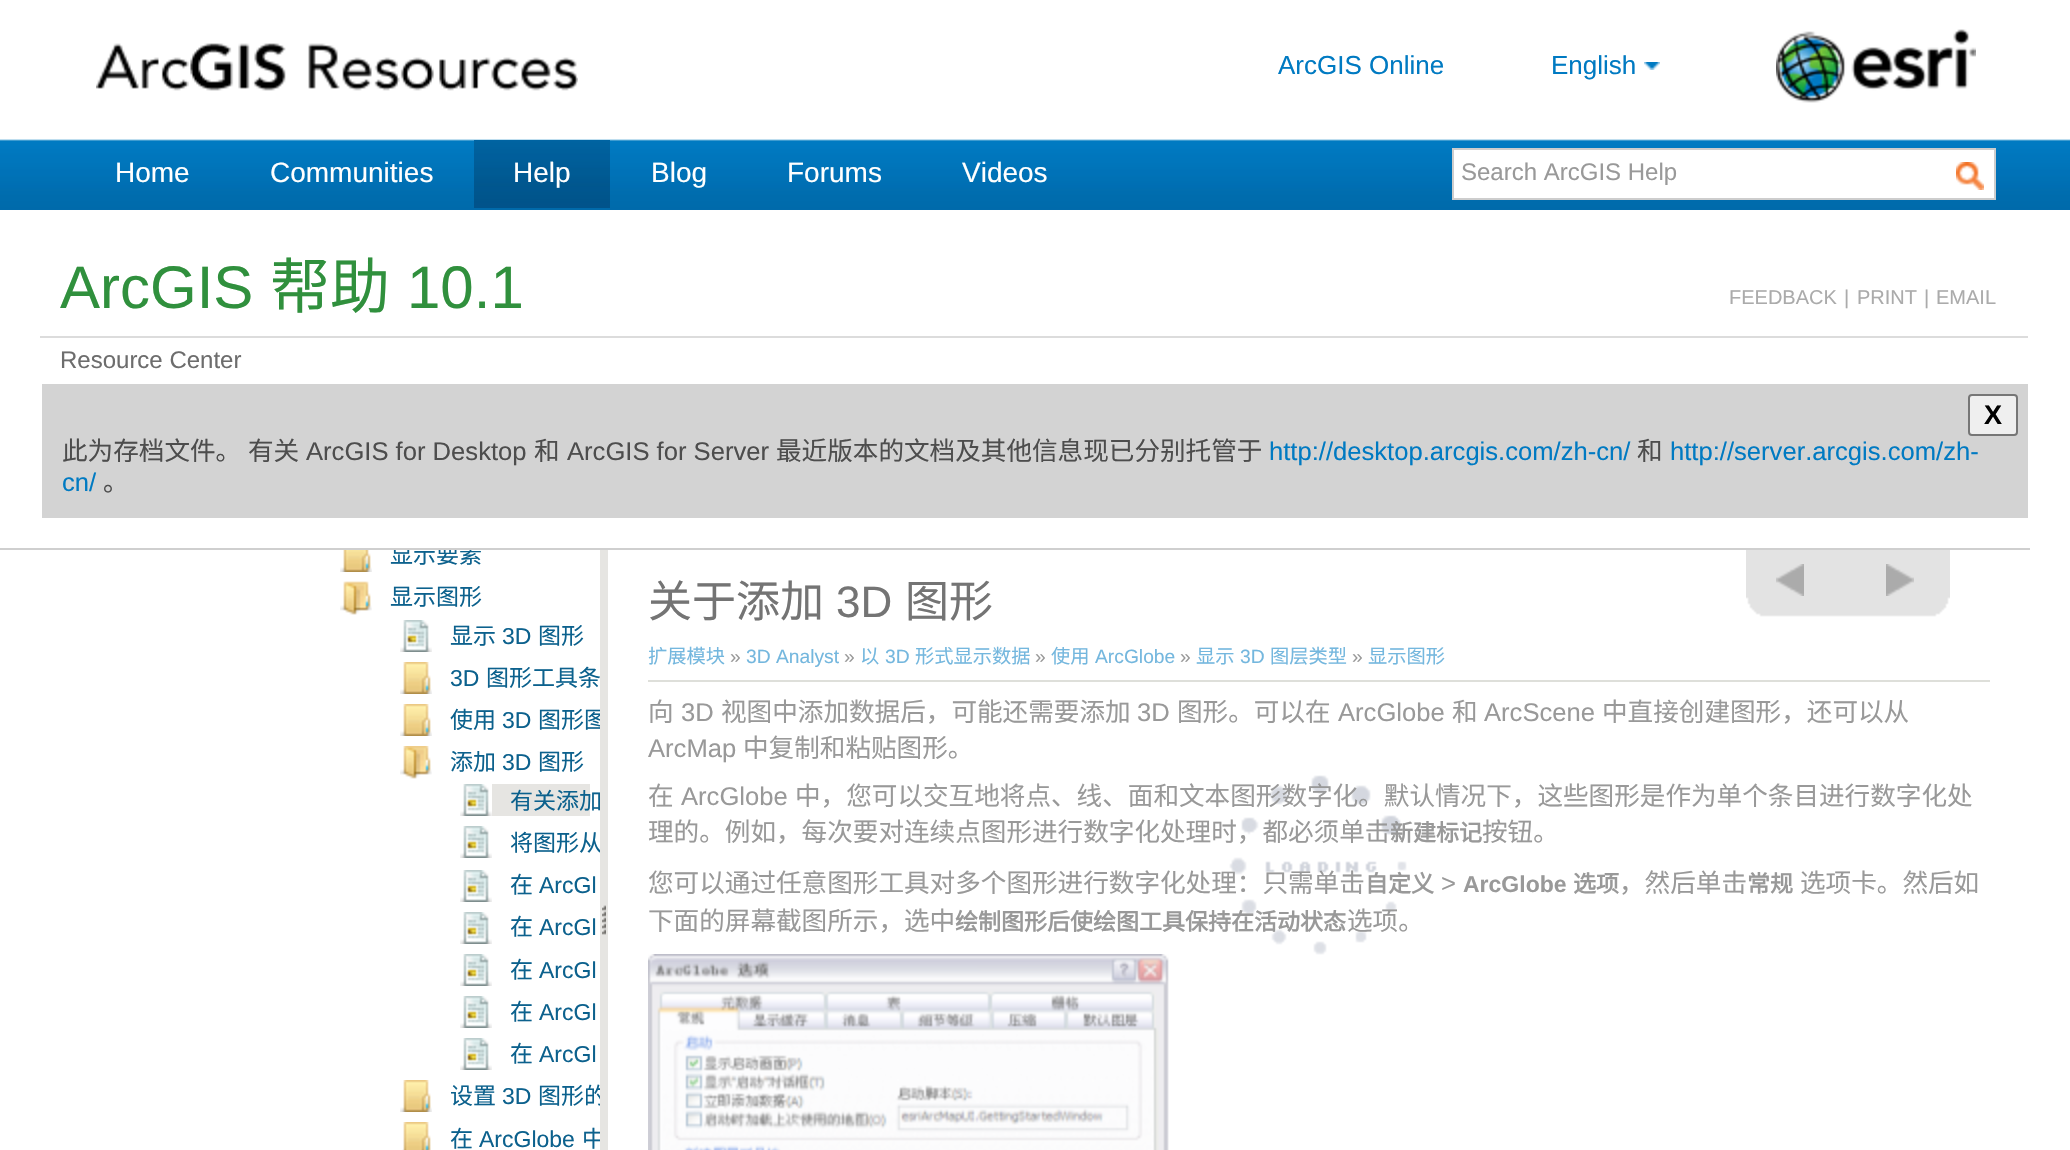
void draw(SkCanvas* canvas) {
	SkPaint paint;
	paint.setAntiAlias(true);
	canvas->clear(0xffffffff);
	canvas->drawImageRect(SkImages::DeferredFromEncodedData(SkData::MakeFromFileName("img1.png")), SkRect::MakeXYWH(0, 139, 2070, 71), SkSamplingOptions());
	canvas->drawImageRect(SkImages::DeferredFromEncodedData(SkData::MakeFromFileName("img2.png")), SkRect::MakeXYWH(96, 43, 482, 48), SkSamplingOptions());
	SkFont f1(fontMgr->matchFamilyStyle("Liberation Sans", SkFontStyle::Normal()), 26);
	f1.setSubpixel(true);
	paint.setColor(0xff007ac2);
	canvas->drawString("ArcGIS Online", 1278, 74, f1, paint);
	canvas->drawString("English", 1551, 74, f1, paint);
	canvas->drawImageRect(SkImages::DeferredFromEncodedData(SkData::MakeFromFileName("img3.png")), SkRect::MakeXYWH(1644, 62, 16, 8), SkSamplingOptions());
	canvas->drawImageRect(SkImages::DeferredFromEncodedData(SkData::MakeFromFileName("img4.png")), SkRect::MakeXYWH(1776, 29, 200, 74), SkSamplingOptions());
	SkFont f2(fontMgr->matchFamilyStyle("Liberation Sans", SkFontStyle::Normal()), 28);
	f2.setSubpixel(true);
	paint.setColor(0xffffffff);
	canvas->drawString("Home", 115, 182, f2, paint);
	canvas->drawString("Communities", 270, 182, f2, paint);
	canvas->drawImageRect(SkImages::DeferredFromEncodedData(SkData::MakeFromFileName("img5.png")), SkRect::MakeXYWH(474, 140, 136, 68), SkSamplingOptions());
	canvas->drawString("Help", 513, 182, f2, paint);
	canvas->drawString("Blog", 651, 182, f2, paint);
	canvas->drawString("Forums", 787, 182, f2, paint);
	canvas->drawString("Videos", 962, 182, f2, paint);
	canvas->drawRect(SkRect::MakeXYWH(1453, 149, 542, 50), paint);
	paint.setStroke(true);
	paint.setStrokeWidth(2);
	paint.setColor(0xffcdcdcd);
	canvas->drawRect(SkRect::MakeXYWH(1453, 149, 542, 50), paint);
	SkFont f3(fontMgr->matchFamilyStyle("Liberation Sans", SkFontStyle::Normal()), 24);
	f3.setSubpixel(true);
	paint.setStroke(false);
	paint.setColor(0xff999999);
	canvas->drawString("Search ArcGIS Help", 1461, 180, f3, paint);
	canvas->drawImageRect(SkImages::DeferredFromEncodedData(SkData::MakeFromFileName("img6.png")), SkRect::MakeXYWH(1956, 162, 28, 28), SkSamplingOptions());
	SkFont f4(fontMgr->matchFamilyStyle("Liberation Sans", SkFontStyle::Normal()), 60);
	f4.setSubpixel(true);
	paint.setColor(0xff30903d);
	canvas->drawString("ArcGIS", 60, 308, f4, paint);
	SkFont f5(fontMgr->matchFamilyStyle("Noto Sans CJK SC", SkFontStyle::Normal()), 60);
	f5.setSubpixel(true);
	canvas->drawString("帮助", 270, 308, f5, paint);
	canvas->drawString("10.1", 407, 308, f4, paint);
	SkFont f6(fontMgr->matchFamilyStyle("Liberation Sans", SkFontStyle::Normal()), 20);
	f6.setSubpixel(true);
	paint.setColor(0xffababab);
	canvas->drawString("FEEDBACK", 1729, 304, f6, paint);
	canvas->drawString("|", 1844, 304, f6, paint);
	canvas->drawString("PRINT", 1857, 304, f6, paint);
	canvas->drawString("|", 1924, 304, f6, paint);
	canvas->drawString("EMAIL", 1936, 304, f6, paint);
	paint.setColor(0xffdcdcdc);
	canvas->drawRect(SkRect::MakeXYWH(40, 336, 1988, 2), paint);
	paint.setColor(0xff6d6d6d);
	canvas->drawString("Resource Center", 60, 368, f3, paint);
	paint.setColor(0xffd3d3d3);
	canvas->drawRect(SkRect::MakeXYWH(42, 384, 1986, 134), paint);
	paint.setColor(0xffefefef);
	canvas->drawRoundRect(SkRect::MakeXYWH(1969, 395, 48, 40), 3, 3, paint);
	paint.setStroke(true);
	paint.setColor(0xff767676);
	canvas->drawRoundRect(SkRect::MakeXYWH(1969, 395, 48, 40), 3, 3, paint);
	SkFont f7(fontMgr->matchFamilyStyle("Liberation Sans", SkFontStyle::Bold()), 27);
	f7.setSubpixel(true);
	paint.setStroke(false);
	paint.setColor(0xff000000);
	canvas->drawString("X", 1984, 424, f7, paint);
	SkFont f8(fontMgr->matchFamilyStyle("Noto Sans CJK SC", SkFontStyle::Normal()), 25.6);
	f8.setSubpixel(true);
	paint.setColor(0xff4d4d4d);
	canvas->drawString("此为存档文件。", 62, 460, f8, paint);
	canvas->drawString("有关", 248, 460, f8, paint);
	SkFont f9(fontMgr->matchFamilyStyle("Liberation Sans", SkFontStyle::Normal()), 25.6);
	f9.setSubpixel(true);
	canvas->drawString("ArcGIS for Desktop", 306, 460, f9, paint);
	canvas->drawString("和", 534, 460, f8, paint);
	canvas->drawString("ArcGIS for Server", 567, 460, f9, paint);
	canvas->drawString("最近版本的文档及其他信息现已分别托管于", 776, 460, f8, paint);
	paint.setColor(0xff007ac2);
	canvas->drawString("http://desktop.arcgis.com/zh-cn/", 1269, 460, f9, paint);
	paint.setColor(0xff4d4d4d);
	canvas->drawString("和", 1637, 460, f8, paint);
	paint.setColor(0xff007ac2);
	canvas->drawString("http://server.arcgis.com/zh-", 1670, 460, f9, paint);
	canvas->drawString("cn/", 62, 491, f9, paint);
	paint.setColor(0xff4d4d4d);
	canvas->drawString("。", 103, 491, f8, paint);
	paint.setColor(0xffcfcfcf);
	canvas->drawRect(SkRect::MakeXYWH(0, 548, 2030, 2), paint);
	canvas->drawImageRect(SkImages::DeferredFromEncodedData(SkData::MakeFromFileName("img7.png")), SkRect::MakeXYWH(340, 550, 32, 22), SkSamplingOptions());
	canvas->save();
	canvas->clipRect(SkRect::MakeXYWH(0, 550, 600, 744));
	SkFont f10(fontMgr->matchFamilyStyle("Noto Sans CJK SC", SkFontStyle::Normal()), 23);
	f10.setSubpixel(true);
	paint.setColor(0xff0c618d);
	canvas->drawString("显示要素", 390, 563, f10, paint);
	canvas->restore();
	canvas->drawImageRect(SkImages::DeferredFromEncodedData(SkData::MakeFromFileName("img8.png")), SkRect::MakeXYWH(340, 581, 32, 34), SkSamplingOptions());
	canvas->drawString("显示图形", 390, 605, f10, paint);
	canvas->drawImageRect(SkImages::DeferredFromEncodedData(SkData::MakeFromFileName("img9.png")), SkRect::MakeXYWH(400, 620, 32, 32), SkSamplingOptions());
	canvas->drawString("显示", 450, 644, f10, paint);
	SkFont f11(fontMgr->matchFamilyStyle("Liberation Sans", SkFontStyle::Normal()), 23);
	f11.setSubpixel(true);
	canvas->drawString("3D", 502, 644, f11, paint);
	canvas->drawString("图形", 538, 644, f10, paint);
	canvas->drawImageRect(SkImages::DeferredFromEncodedData(SkData::MakeFromFileName("img10.png")), SkRect::MakeXYWH(400, 662, 32, 32), SkSamplingOptions());
	canvas->drawString("3D", 450, 686, f11, paint);
	canvas->drawString("图形工具条", 486, 686, f10, paint);
	canvas->drawImageRect(SkImages::DeferredFromEncodedData(SkData::MakeFromFileName("img10.png")), SkRect::MakeXYWH(400, 704, 32, 32), SkSamplingOptions());
	canvas->drawString("使用", 450, 728, f10, paint);
	canvas->drawString("3D", 502, 728, f11, paint);
	canvas->drawString("图形图", 538, 728, f10, paint);
	canvas->drawImageRect(SkImages::DeferredFromEncodedData(SkData::MakeFromFileName("img11.png")), SkRect::MakeXYWH(400, 746, 32, 33), SkSamplingOptions());
	canvas->drawString("添加", 450, 770, f10, paint);
	canvas->drawString("3D", 502, 770, f11, paint);
	canvas->drawString("图形", 538, 770, f10, paint);
	paint.setColor(0xffe6e5e2);
	canvas->drawRect(SkRect::MakeXYWH(492, 784, 98, 32), paint);
	canvas->drawImageRect(SkImages::DeferredFromEncodedData(SkData::MakeFromFileName("img9.png")), SkRect::MakeXYWH(460, 784, 32, 32), SkSamplingOptions());
	paint.setColor(0xff0c618d);
	canvas->drawString("有关添加", 510, 809, f10, paint);
	canvas->drawImageRect(SkImages::DeferredFromEncodedData(SkData::MakeFromFileName("img9.png")), SkRect::MakeXYWH(460, 826, 32, 32), SkSamplingOptions());
	canvas->drawString("将图形从", 510, 851, f10, paint);
	canvas->drawImageRect(SkImages::DeferredFromEncodedData(SkData::MakeFromFileName("img9.png")), SkRect::MakeXYWH(460, 870, 32, 32), SkSamplingOptions());
	canvas->drawString("在", 510, 893, f10, paint);
	canvas->drawString("ArcGl", 539, 893, f11, paint);
	canvas->drawImageRect(SkImages::DeferredFromEncodedData(SkData::MakeFromFileName("img9.png")), SkRect::MakeXYWH(460, 912, 32, 32), SkSamplingOptions());
	canvas->drawString("在", 510, 935, f10, paint);
	canvas->drawString("ArcGl", 539, 935, f11, paint);
	canvas->drawImageRect(SkImages::DeferredFromEncodedData(SkData::MakeFromFileName("img9.png")), SkRect::MakeXYWH(460, 954, 32, 32), SkSamplingOptions());
	canvas->drawString("在", 510, 978, f10, paint);
	canvas->drawString("ArcGl", 539, 978, f11, paint);
	canvas->drawImageRect(SkImages::DeferredFromEncodedData(SkData::MakeFromFileName("img9.png")), SkRect::MakeXYWH(460, 996, 32, 32), SkSamplingOptions());
	canvas->drawString("在", 510, 1020, f10, paint);
	canvas->drawString("ArcGl", 539, 1020, f11, paint);
	canvas->drawImageRect(SkImages::DeferredFromEncodedData(SkData::MakeFromFileName("img9.png")), SkRect::MakeXYWH(460, 1038, 32, 32), SkSamplingOptions());
	canvas->drawString("在", 510, 1062, f10, paint);
	canvas->drawString("ArcGl", 539, 1062, f11, paint);
	canvas->drawImageRect(SkImages::DeferredFromEncodedData(SkData::MakeFromFileName("img10.png")), SkRect::MakeXYWH(400, 1080, 32, 32), SkSamplingOptions());
	canvas->drawString("设置", 450, 1104, f10, paint);
	canvas->drawString("3D", 502, 1104, f11, paint);
	canvas->drawString("图形的", 538, 1104, f10, paint);
	canvas->drawImageRect(SkImages::DeferredFromEncodedData(SkData::MakeFromFileName("img12.png")), SkRect::MakeXYWH(402, 1122, 29, 28), SkSamplingOptions());
	canvas->drawString("在", 450, 1147, f10, paint);
	canvas->drawString("ArcGlobe", 479, 1147, f11, paint);
	canvas->drawString("中", 582, 1147, f10, paint);
	paint.setColor(0xffe6e5e2);
	canvas->drawRect(SkRect::MakeXYWH(600, 550, 8, 600), paint);
	canvas->drawImageRect(SkImages::DeferredFromEncodedData(SkData::MakeFromFileName("img13.png")), SkRect::MakeXYWH(602, 905, 4, 30), SkSamplingOptions());
	canvas->drawImageRect(SkImages::DeferredFromEncodedData(SkData::MakeFromFileName("img14.png")), SkRect::MakeXYWH(1229, 775, 178, 180), SkSamplingOptions());
	paint.setColor(0xffdedfda);
	canvas->drawRect(SkRect::MakeXYWH(648, 680, 1342, 2), paint);
	SkFont f12(fontMgr->matchFamilyStyle("Noto Sans CJK SC", SkFontStyle::Normal()), 44);
	f12.setSubpixel(true);
	paint.setColor(0xff747474);
	canvas->drawString("关于添加", 648, 617, f12, paint);
	SkFont f13(fontMgr->matchFamilyStyle("Liberation Sans", SkFontStyle::Normal()), 44);
	f13.setSubpixel(true);
	canvas->drawString("3D", 836, 617, f13, paint);
	canvas->drawString("图形", 905, 617, f12, paint);
	SkFont f14(fontMgr->matchFamilyStyle("Noto Sans CJK SC", SkFontStyle::Normal()), 19.25);
	f14.setSubpixel(true);
	paint.setColor(0xff74b7de);
	canvas->drawString("扩展模块", 648, 663, f14, paint);
	SkFont f15(fontMgr->matchFamilyStyle("Liberation Sans", SkFontStyle::Normal()), 19.25);
	f15.setSubpixel(true);
	paint.setColor(0xff999999);
	canvas->drawString("»", 730, 663, f15, paint);
	paint.setColor(0xff74b7de);
	canvas->drawString("3D Analyst", 746, 663, f15, paint);
	paint.setColor(0xff999999);
	canvas->drawString("»", 844, 663, f15, paint);
	paint.setColor(0xff74b7de);
	canvas->drawString("以", 860, 663, f14, paint);
	canvas->drawString("3D", 885, 663, f15, paint);
	canvas->drawString("形式显示数据", 915, 663, f14, paint);
	paint.setColor(0xff999999);
	canvas->drawString("»", 1035, 663, f15, paint);
	paint.setColor(0xff74b7de);
	canvas->drawString("使用", 1051, 663, f14, paint);
	canvas->drawString("ArcGlobe", 1095, 663, f15, paint);
	paint.setColor(0xff999999);
	canvas->drawString("»", 1180, 663, f15, paint);
	paint.setColor(0xff74b7de);
	canvas->drawString("显示", 1196, 663, f14, paint);
	canvas->drawString("3D", 1240, 663, f15, paint);
	canvas->drawString("图层类型", 1270, 663, f14, paint);
	paint.setColor(0xff999999);
	canvas->drawString("»", 1352, 663, f15, paint);
	paint.setColor(0xff74b7de);
	canvas->drawString("显示图形", 1368, 663, f14, paint);
	paint.setColor(0xff999999);
	canvas->drawString("向", 648, 721, f8, paint);
	canvas->drawString("3D", 681, 721, f9, paint);
	canvas->drawString("视图中添加数据后，可能还需要添加", 721, 721, f8, paint);
	canvas->drawString("3D", 1137, 721, f9, paint);
	canvas->drawString("图形。可以在", 1177, 721, f8, paint);
	canvas->drawString("ArcGlobe", 1338, 721, f9, paint);
	canvas->drawString("和", 1452, 721, f8, paint);
	canvas->drawString("ArcScene", 1484, 721, f9, paint);
	canvas->drawString("中直接创建图形，还可以从", 1602, 721, f8, paint);
	canvas->drawString("ArcMap", 648, 757, f9, paint);
	canvas->drawString("中复制和粘贴图形。", 743, 757, f8, paint);
	canvas->drawString("在", 648, 805, f8, paint);
	canvas->drawString("ArcGlobe", 681, 805, f9, paint);
	canvas->drawString("中，您可以交互地将点、线、面和文本图形数字化。默认情况下，这些图形是作为单个条目进行数字化处", 795, 805, f8, paint);
	canvas->drawString("理的。例如，每次要对连续点图形进行数字化处理时，都必须单击", 648, 841, f8, paint);
	SkFont f16(fontMgr->matchFamilyStyle("Noto Sans CJK SC", SkFontStyle::Bold()), 23);
	f16.setSubpixel(true);
	canvas->drawString("新建标记", 1390, 841, f16, paint);
	canvas->drawString("按钮。", 1482, 841, f8, paint);
	canvas->drawString("您可以通过任意图形工具对多个图形进行数字化处理：只需单击", 648, 892, f8, paint);
	canvas->drawString("自定义", 1365, 892, f16, paint);
	canvas->drawString(">", 1441, 892, f9, paint);
	SkFont f17(fontMgr->matchFamilyStyle("Liberation Sans", SkFontStyle::Bold()), 23);
	f17.setSubpixel(true);
	canvas->drawString("ArcGlobe", 1463, 892, f17, paint);
	canvas->drawString("选项", 1573, 892, f16, paint);
	canvas->drawString("，然后单击", 1619, 892, f8, paint);
	canvas->drawString("常规", 1747, 892, f16, paint);
	canvas->drawString("选项卡。然后如", 1800, 892, f8, paint);
	canvas->drawString("下面的屏幕截图所示，选中", 648, 930, f8, paint);
	canvas->drawString("绘制图形后使绘图工具保持在活动状态", 955, 930, f16, paint);
	canvas->drawString("选项。", 1347, 930, f8, paint);
	canvas->drawImageRect(SkImages::DeferredFromEncodedData(SkData::MakeFromFileName("img15.png")), SkRect::MakeXYWH(648, 954, 521, 196), SkSamplingOptions());
	canvas->drawImageRect(SkImages::DeferredFromEncodedData(SkData::MakeFromFileName("img16.png")), SkRect::MakeXYWH(1746, 550, 204, 67), SkSamplingOptions());
	canvas->drawImageRect(SkImages::DeferredFromEncodedData(SkData::MakeFromFileName("img17.png")), SkRect::MakeXYWH(1776, 564, 28, 32), SkSamplingOptions());
	canvas->drawImageRect(SkImages::DeferredFromEncodedData(SkData::MakeFromFileName("img18.png")), SkRect::MakeXYWH(1886, 564, 28, 32), SkSamplingOptions());
}
